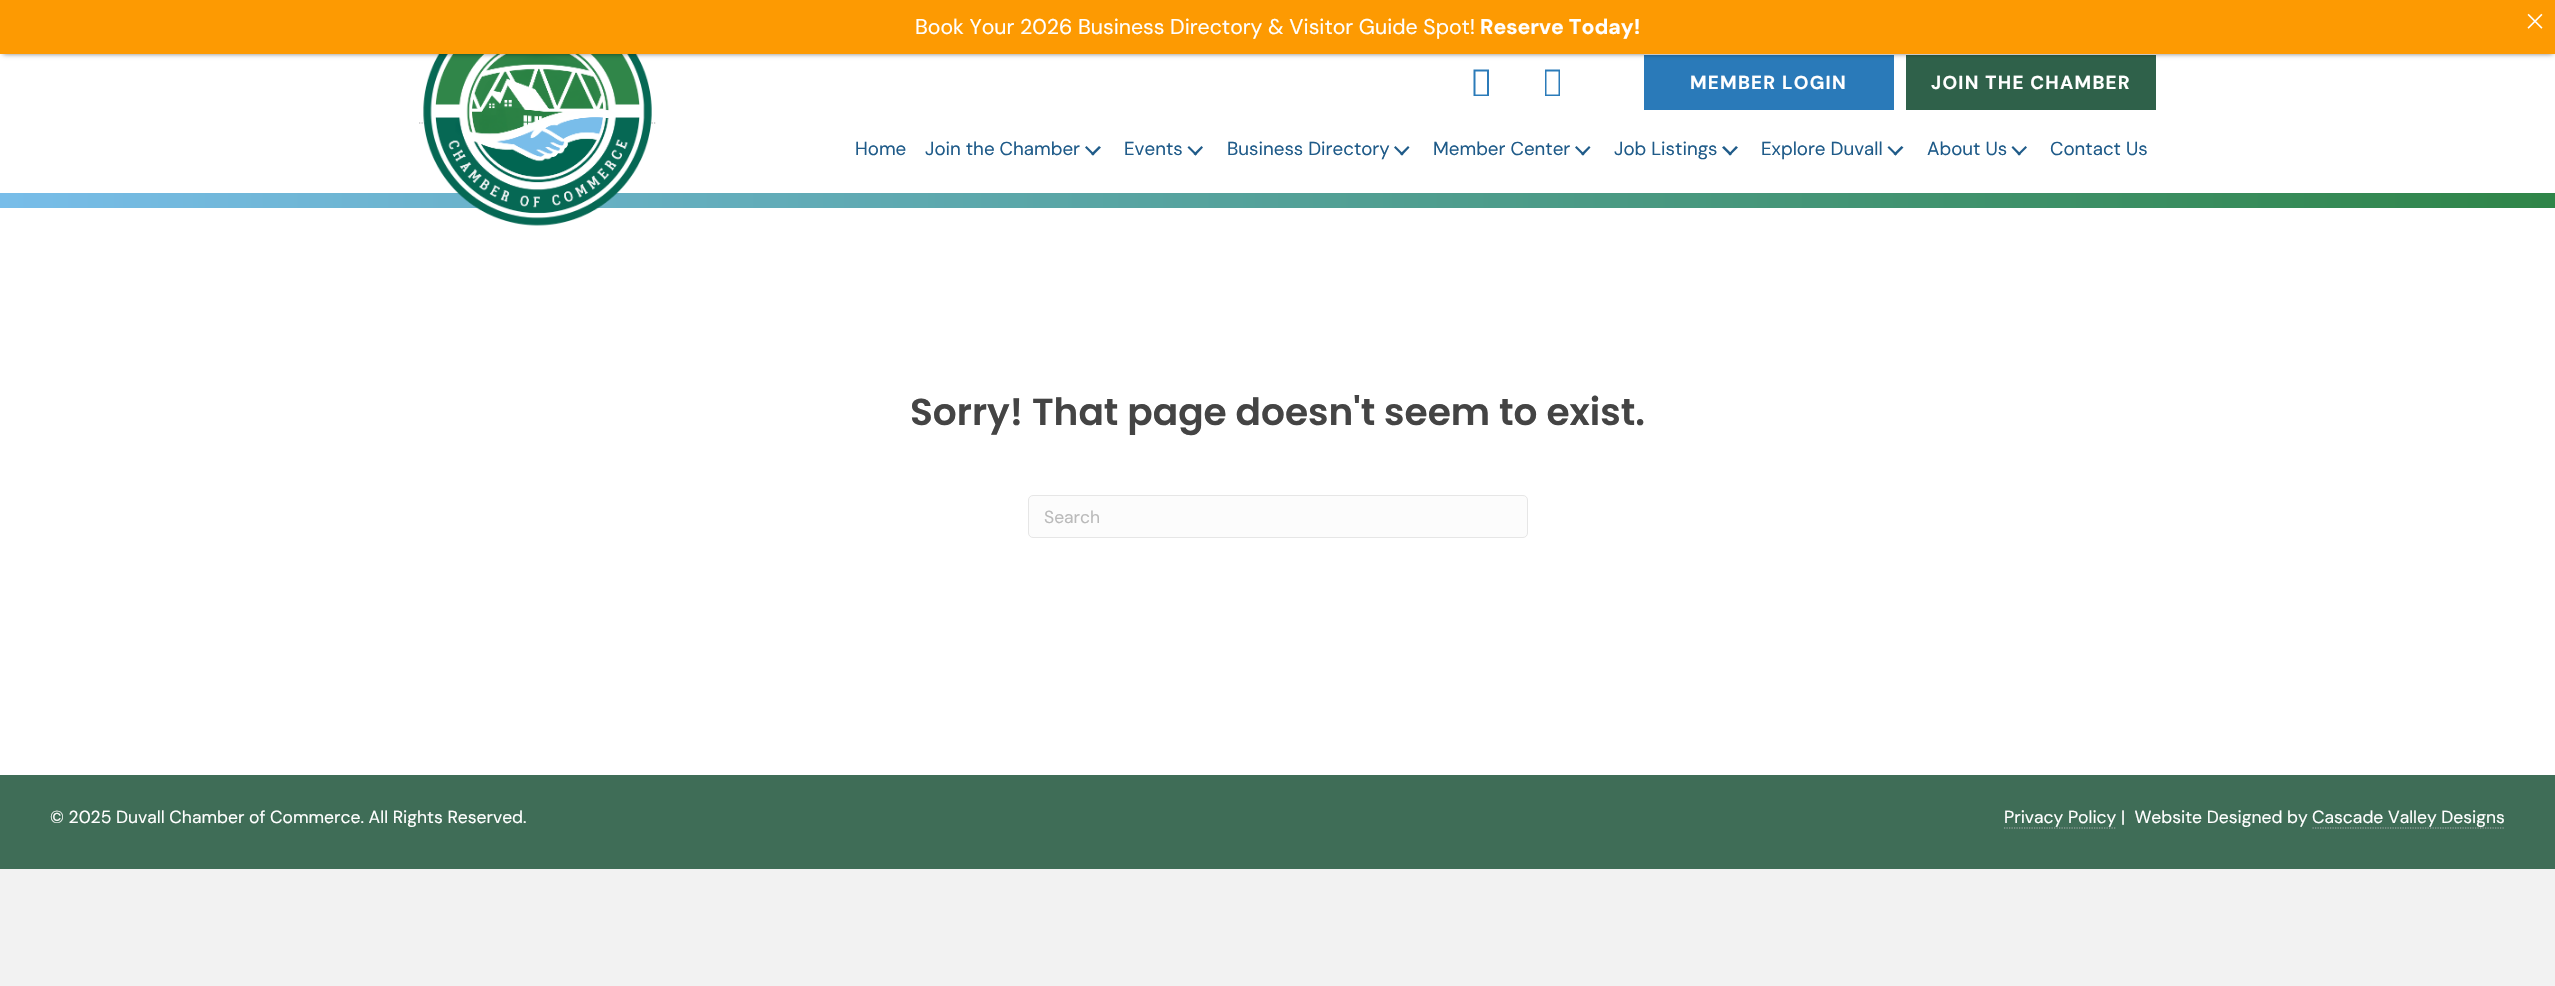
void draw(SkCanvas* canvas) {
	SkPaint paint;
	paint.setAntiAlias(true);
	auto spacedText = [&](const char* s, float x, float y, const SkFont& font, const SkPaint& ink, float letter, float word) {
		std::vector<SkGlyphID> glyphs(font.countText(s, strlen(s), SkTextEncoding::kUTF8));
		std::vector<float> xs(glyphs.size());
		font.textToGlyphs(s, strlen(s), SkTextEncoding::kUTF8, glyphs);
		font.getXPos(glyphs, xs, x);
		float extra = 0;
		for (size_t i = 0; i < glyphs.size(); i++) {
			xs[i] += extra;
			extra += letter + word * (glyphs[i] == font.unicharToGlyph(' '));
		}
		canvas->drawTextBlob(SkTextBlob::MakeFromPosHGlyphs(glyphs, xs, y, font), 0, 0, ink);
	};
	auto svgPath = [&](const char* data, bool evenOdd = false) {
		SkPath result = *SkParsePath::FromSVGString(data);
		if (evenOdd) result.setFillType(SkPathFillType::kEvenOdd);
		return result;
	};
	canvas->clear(0xfff2f2f2);
	paint.setColor(0xffffffff);
	canvas->drawRect(SkRect::MakeXYWH(0, 54, 2555, 721), paint);
	paint.setStroke(true);
	paint.setStrokeWidth(1.2);
	paint.setColor(0xffacacae);
	paint.setPathEffect(SkDashPathEffect::Make({{1.25f, 1.25f}}, 0));
	canvas->drawPath(svgPath("M419 123H656"), paint);
	paint.setPathEffect(nullptr);
	paint.setStroke(false);
	{
		const SkColor colors[] = {0xff78bde9, 0xff2f8548};
		const float stops[] = {0, 1};
		const SkPoint ends[] = {{0, 200}, {2555, 200}};
		paint.setShader(SkGradientShader::MakeLinear(ends, colors, stops, 2, SkTileMode::kClamp));
		paint.setAlpha(255);
	}
	canvas->drawRect(SkRect::MakeXYWH(0, 193, 2555, 15), paint);
	canvas->drawImageRect(SkImages::DeferredFromEncodedData(SkData::MakeFromFileName("img2.png")), SkRect::MakeXYWH(423, 54, 229, 172), SkSamplingOptions());
	paint.setShader(nullptr);
	paint.setColor(0xff2a7ab9);
	canvas->drawRect(SkRect::MakeXYWH(1644, 55, 250, 55), paint);
	paint.setColor(0xff2f614a);
	canvas->drawRect(SkRect::MakeXYWH(1906, 55, 250, 55), paint);
	paint.setColor(0x80000000);
	paint.setMaskFilter(SkMaskFilter::MakeBlur(kNormal_SkBlurStyle, 2.5));
	canvas->drawRect(SkRect::MakeXYWH(3, 5, 2550, 49), paint);
	paint.setMaskFilter(nullptr);
	paint.setColor(0xfffd9a02);
	canvas->drawRect(SkRect::MakeXYWH(0, 0, 2555, 54), paint);
	SkFont f1(fontMgr->matchFamilyStyle("DM Sans", SkFontStyle::Normal()), 21.25);
	f1.setSubpixel(true);
	paint.setColor(0xffffffff);
	canvas->drawString("Book Your 2026 Business Directory & Visitor Guide Spot!", 915, 34, f1, paint);
	SkFont f2(fontMgr->matchFamilyStyle("DM Sans", SkFontStyle::Bold()), 21.25);
	f2.setSubpixel(true);
	canvas->drawString("Reserve Today!", 1480, 34, f2, paint);
	canvas->drawImageRect(SkImages::DeferredFromEncodedData(SkData::MakeFromFileName("img1.png")), SkRect::MakeXYWH(2527, 13, 16, 16), SkSamplingOptions());
	paint.setColor(0xff2b7bb9);
	canvas->drawPath(svgPath("M1473.5 96V69.5H1489V96ZM1475.5 94.5H1487V71.5H1475.5Z"), paint);
	canvas->drawPath(svgPath("M1545 96V69.5H1560V96ZM1546.5 94.5H1558.5V71.5H1546.5Z"), paint);
	SkFont f3(fontMgr->matchFamilyStyle("DM Sans", SkFontStyle::Bold()), 18.75);
	f3.setSubpixel(true);
	paint.setColor(0xffffffff);
	spacedText("MEMBER LOGIN", 1690, 89, f3, paint, 1.25, 0);
	spacedText("JOIN THE CHAMBER", 1931, 89, f3, paint, 1.25, 0);
	SkFont f4(fontMgr->matchFamilyStyle("DM Sans", SkFontStyle::Normal()), 18.75);
	f4.setSubpixel(true);
	paint.setColor(0xff1f5b89);
	canvas->drawString("Home", 855, 155, f4, paint);
	canvas->drawString("Join the Chamber", 925, 155, f4, paint);
	canvas->drawPath(svgPath("M1099 146L1101 147.5L1093 155.5L1091 154Z"), paint);
	canvas->drawPath(svgPath("M1086.5 146L1094.5 154L1093 155.5L1085 147.5Z"), paint);
	canvas->drawString("Events", 1124, 155, f4, paint);
	canvas->drawPath(svgPath("M1201.5 146L1203 147.5L1195.5 155.5L1193.5 154Z"), paint);
	canvas->drawPath(svgPath("M1189 146L1197 154L1195.5 155.5L1187.5 147.5Z"), paint);
	canvas->drawString("Business Directory", 1227, 155, f4, paint);
	canvas->drawPath(svgPath("M1408 146L1409.5 147.5L1402 155.5L1400 154Z"), paint);
	canvas->drawPath(svgPath("M1395.5 146L1403.5 154L1402 155.5L1394 147.5Z"), paint);
	canvas->drawString("Member Center", 1433, 155, f4, paint);
	canvas->drawPath(svgPath("M1589 146L1590.5 147.5L1583 155.5L1581 154Z"), paint);
	canvas->drawPath(svgPath("M1576.5 146L1584.5 154L1583 155.5L1575 147.5Z"), paint);
	canvas->drawString("Job Listings", 1614, 155, f4, paint);
	canvas->drawPath(svgPath("M1736 146L1738 147.5L1730 155.5L1728.5 154Z"), paint);
	canvas->drawPath(svgPath("M1724 146L1732 154L1730 155.5L1722 147.5Z"), paint);
	canvas->drawString("Explore Duvall", 1761, 155, f4, paint);
	canvas->drawPath(svgPath("M1901.5 146L1903.5 147.5L1895.5 155.5L1893.5 154Z"), paint);
	canvas->drawPath(svgPath("M1889 146L1897 154L1895.5 155.5L1887.5 147.5Z"), paint);
	canvas->drawString("About Us", 1927, 155, f4, paint);
	canvas->drawPath(svgPath("M2025.5 146L2027 147.5L2019 155.5L2017.5 154Z"), paint);
	canvas->drawPath(svgPath("M2013 146L2021 154L2019 155.5L2011.5 147.5Z"), paint);
	canvas->drawString("Contact Us", 2050, 155, f4, paint);
	SkFont f5(fontMgr->matchFamilyStyle("Poppins", SkFontStyle(600, SkFontStyle::kNormal_Width, SkFontStyle::kUpright_Slant)), 37.5);
	f5.setSubpixel(true);
	paint.setColor(0xff444444);
	canvas->drawString("Sorry! That page doesn't seem to exist.", 910, 425, f5, paint);
	paint.setColor(0xfffcfcfc);
	canvas->drawRoundRect(SkRect::MakeXYWH(1028.5, 495.5, 499, 42), 4.5, 4.5, paint);
	paint.setStroke(true);
	paint.setStrokeWidth(1);
	paint.setColor(0xffe6e6e6);
	canvas->drawRoundRect(SkRect::MakeXYWH(1028.5, 495.5, 499, 42), 4.5, 4.5, paint);
	SkFont f6(fontMgr->matchFamilyStyle("DM Sans", SkFontStyle::Normal()), 17.5);
	f6.setSubpixel(true);
	paint.setStroke(false);
	paint.setColor(0xffbababa);
	canvas->drawString("Search", 1044, 523, f6, paint);
	paint.setColor(0xff3f6d57);
	canvas->drawRect(SkRect::MakeXYWH(0, 775, 2555, 94), paint);
	paint.setColor(0xffffffff);
	canvas->drawString("© 2025 Duvall Chamber of Commerce. All Rights Reserved.", 50, 823, f6, paint);
	paint.setStroke(true);
	paint.setStrokeWidth(1.2);
	paint.setColor(0xffacacae);
	paint.setPathEffect(SkDashPathEffect::Make({{1.25f, 1.25f}}, 0));
	canvas->drawPath(svgPath("M2004 828H2116"), paint);
	paint.setPathEffect(nullptr);
	paint.setStroke(false);
	paint.setColor(0xffffffff);
	canvas->drawString("Privacy Policy |  Website Designed by", 2004, 823, f6, paint);
	paint.setStroke(true);
	paint.setColor(0xffacacae);
	paint.setPathEffect(SkDashPathEffect::Make({{1.25f, 1.25f}}, 0));
	canvas->drawPath(svgPath("M2312.5 828H2505"), paint);
	paint.setPathEffect(nullptr);
	paint.setStroke(false);
	paint.setColor(0xffffffff);
	canvas->drawString("Cascade Valley Designs", 2312, 823, f6, paint);
}
